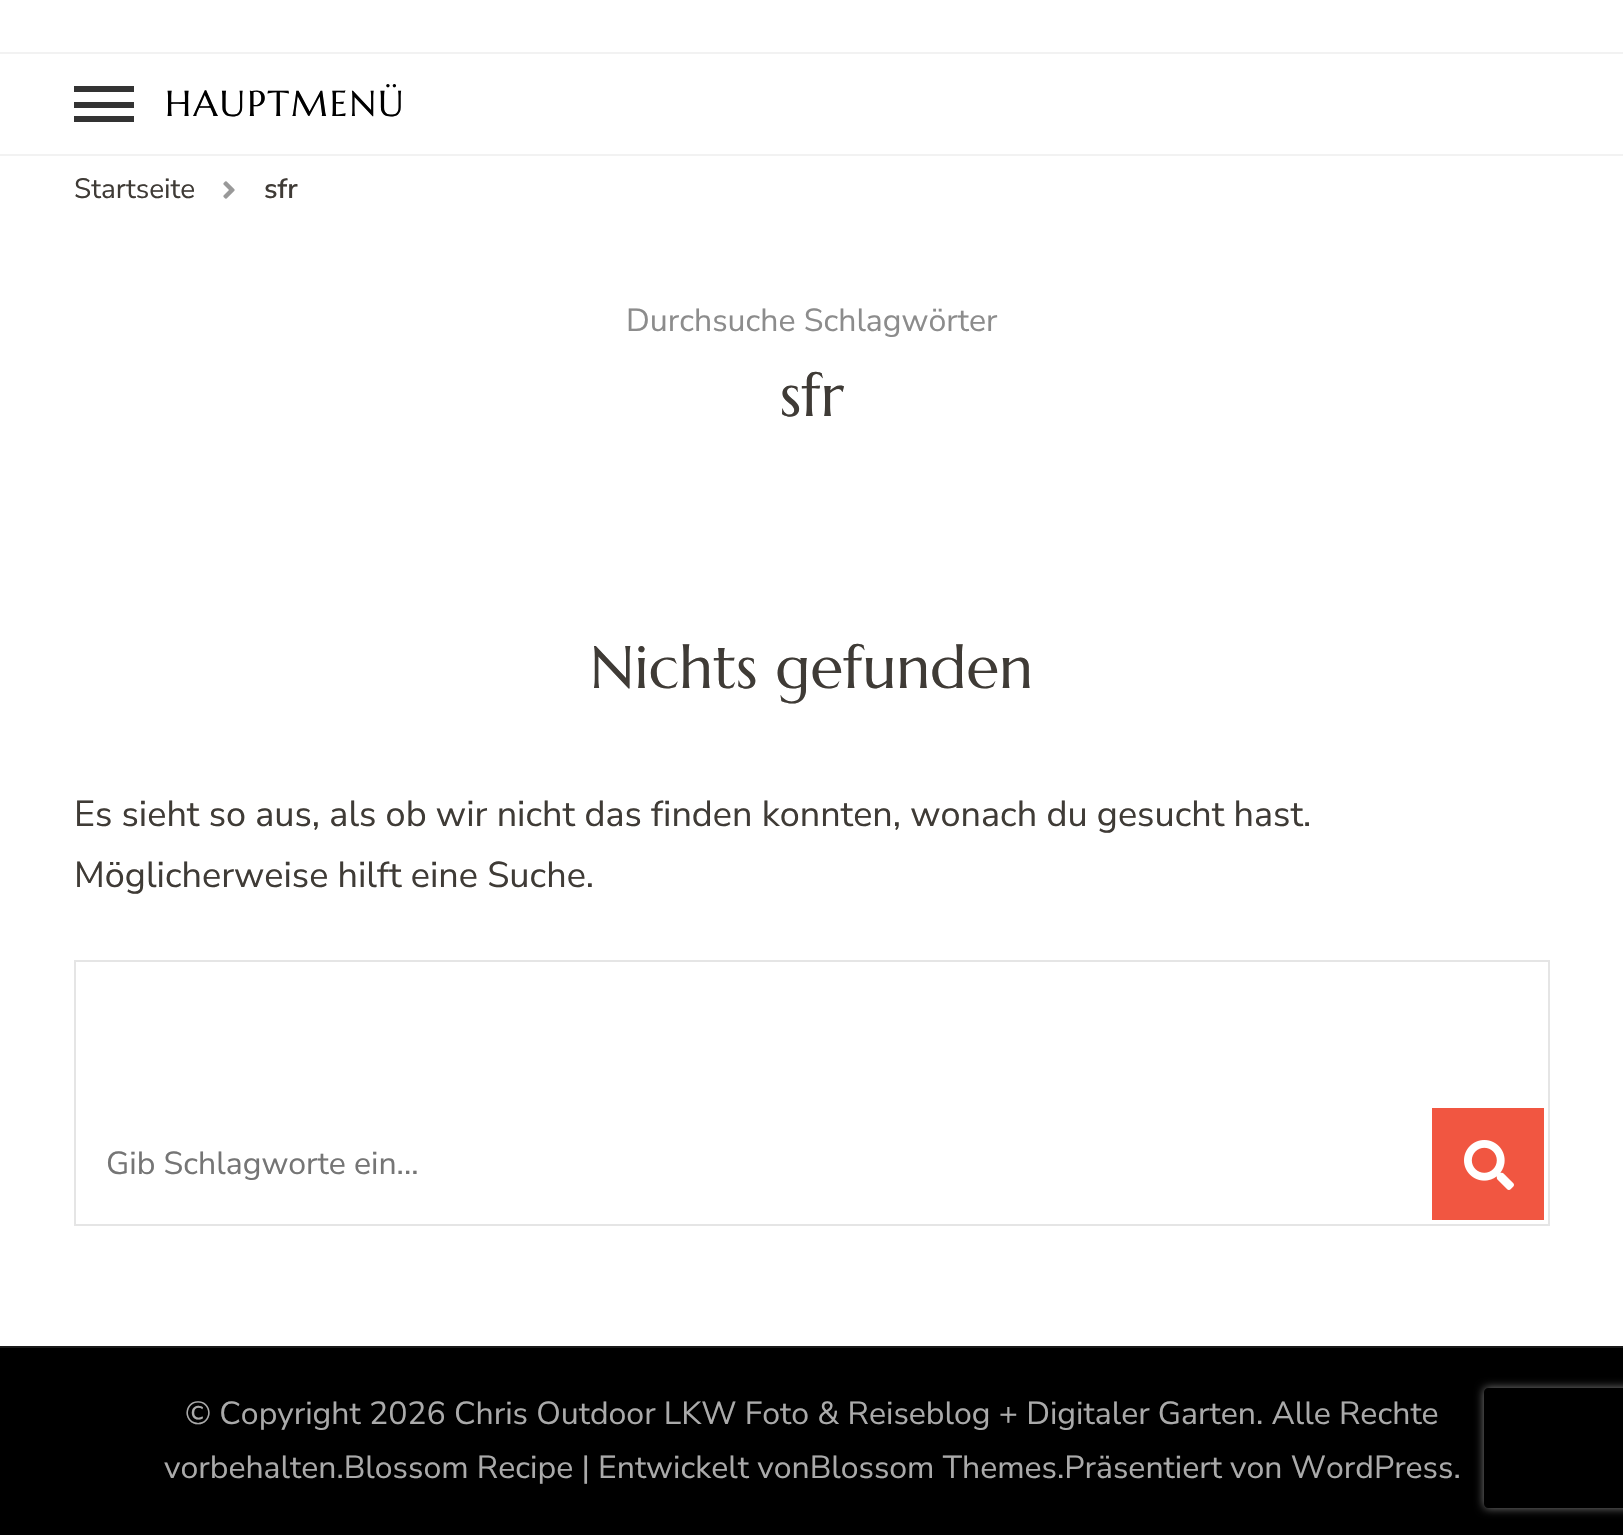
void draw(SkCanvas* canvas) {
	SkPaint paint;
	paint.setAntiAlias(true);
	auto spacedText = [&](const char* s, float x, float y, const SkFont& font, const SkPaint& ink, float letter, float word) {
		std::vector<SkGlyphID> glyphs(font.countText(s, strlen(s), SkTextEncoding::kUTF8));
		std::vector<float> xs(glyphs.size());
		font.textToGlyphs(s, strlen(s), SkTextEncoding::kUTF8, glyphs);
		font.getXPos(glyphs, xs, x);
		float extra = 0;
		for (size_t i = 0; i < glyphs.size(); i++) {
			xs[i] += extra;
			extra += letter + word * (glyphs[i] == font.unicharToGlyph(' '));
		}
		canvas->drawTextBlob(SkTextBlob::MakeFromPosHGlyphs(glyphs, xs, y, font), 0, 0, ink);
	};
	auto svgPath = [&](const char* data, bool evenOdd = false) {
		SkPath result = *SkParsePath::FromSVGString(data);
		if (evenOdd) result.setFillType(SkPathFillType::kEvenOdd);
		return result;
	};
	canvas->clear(0xffffffff);
	paint.setColor(0xfff2f2f2);
	canvas->drawRect(SkRect::MakeXYWH(0, 154, 1623, 2), paint);
	canvas->drawRect(SkRect::MakeXYWH(0, 52, 1623, 2), paint);
	paint.setColor(0xff333333);
	canvas->drawRect(SkRect::MakeXYWH(74, 86, 60, 6), paint);
	SkFont f1(fontMgr->matchFamilyStyle("Marcellus", SkFontStyle::Normal()), 36);
	f1.setSubpixel(true);
	paint.setColor(0xff000000);
	spacedText("HAUPTMENÜ", 165, 116, f1, paint, 2, 0);
	paint.setColor(0xff333333);
	canvas->drawRect(SkRect::MakeXYWH(74, 102, 60, 6), paint);
	canvas->drawRect(SkRect::MakeXYWH(74, 116, 60, 6), paint);
	SkFont f2(fontMgr->matchFamilyStyle("Nunito Sans", SkFontStyle::Normal()), 28);
	f2.setSubpixel(true);
	paint.setColor(0xff3f3b36);
	canvas->drawString("Startseite", 74, 198, f2, paint);
	canvas->drawImageRect(SkImages::DeferredFromEncodedData(SkData::MakeFromFileName("img1.png")), SkRect::MakeXYWH(223, 181, 12, 18), SkSamplingOptions());
	SkFont f3(fontMgr->matchFamilyStyle("Nunito Sans", SkFontStyle(600, SkFontStyle::kNormal_Width, SkFontStyle::kUpright_Slant)), 28);
	f3.setSubpixel(true);
	canvas->drawString("sfr", 264, 198, f3, paint);
	SkFont f4(fontMgr->matchFamilyStyle("Nunito Sans", SkFontStyle::Normal()), 32);
	f4.setSubpixel(true);
	paint.setColor(0xff8c8c8c);
	canvas->drawString("Durchsuche Schlagwörter", 626, 331, f4, paint);
	SkFont f5(fontMgr->matchFamilyStyle("Marcellus", SkFontStyle::Normal()), 60);
	f5.setSubpixel(true);
	paint.setColor(0xff3f3b36);
	canvas->drawString("sfr", 780, 416, f5, paint);
	canvas->drawString("Nichts gefunden", 590, 688, f5, paint);
	SkFont f6(fontMgr->matchFamilyStyle("Nunito Sans", SkFontStyle::Normal()), 36);
	f6.setSubpixel(true);
	canvas->drawString("Es sieht so aus, als ob wir nicht das finden konnten, wonach du gesucht hast.", 74, 826, f6, paint);
	canvas->drawString("Möglicherweise hilft eine Suche.", 74, 887, f6, paint);
	paint.setStroke(true);
	paint.setStrokeWidth(2);
	paint.setColor(0xffe5e5e5);
	canvas->drawRect(SkRect::MakeXYWH(75, 961, 1474, 264), paint);
	paint.setStroke(false);
	paint.setColor(0xff757575);
	canvas->drawString("Gib Schlagworte ein...", 106, 1174, f4, paint);
	paint.setColor(0xfff15641);
	canvas->drawRect(SkRect::MakeXYWH(1432, 1108, 112, 112), paint);
	canvas->drawImageRect(SkImages::DeferredFromEncodedData(SkData::MakeFromFileName("img2.png")), SkRect::MakeXYWH(1464, 1140, 50, 50), SkSamplingOptions());
	paint.setColor(0xff000000);
	canvas->drawRect(SkRect::MakeXYWH(0, 1348, 1623, 187), paint);
	paint.setColor(0xff1a1a1a);
	canvas->drawRect(SkRect::MakeXYWH(0, 1346, 1623, 2), paint);
	paint.setColor(0xffaaaaaa);
	canvas->drawString("© Copyright 2026 Chris Outdoor LKW Foto & Reiseblog + Digitaler Garten. Alle Rechte", 185, 1424, f4, paint);
	canvas->drawString("vorbehalten.Blossom Recipe | Entwickelt vonBlossom Themes.Präsentiert von WordPress.", 164, 1478, f4, paint);
	canvas->save();
	canvas->clipPath(svgPath("M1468 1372H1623V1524H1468ZM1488 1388H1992C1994 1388 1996 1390 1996 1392V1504C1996 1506 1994 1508 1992 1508H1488C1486 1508 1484 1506 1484 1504V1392C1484 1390 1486 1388 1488 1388Z", true), true);
	paint.setColor(0xff808080);
	paint.setMaskFilter(SkMaskFilter::MakeBlur(kNormal_SkBlurStyle, 5));
	canvas->drawRoundRect(SkRect::MakeXYWH(1484, 1388, 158, 120), 4, 4, paint);
	paint.setMaskFilter(nullptr);
	canvas->restore();
}
